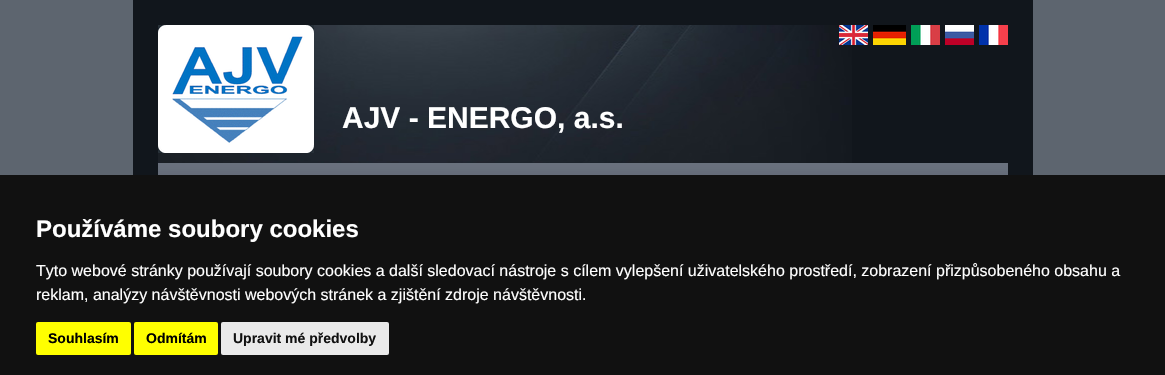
void draw(SkCanvas* canvas) {
	SkPaint paint;
	paint.setAntiAlias(true);
	canvas->clear(0xff5d656f);
	paint.setColor(0xff11161c);
	canvas->drawRect(SkRect::MakeXYWH(133, 0, 900, 175), paint);
	canvas->drawImageRect(SkImages::DeferredFromEncodedData(SkData::MakeFromFileName("img1.png")), SkRect::MakeXYWH(158, 25, 694, 138), SkSamplingOptions());
	canvas->drawImageRect(SkImages::DeferredFromEncodedData(SkData::MakeFromFileName("img2.png")), SkRect::MakeXYWH(158, 25, 156, 128), SkSamplingOptions());
	canvas->drawImageRect(SkImages::DeferredFromEncodedData(SkData::MakeFromFileName("img3.png")), SkRect::MakeXYWH(839, 25, 29, 20), SkSamplingOptions());
	canvas->drawImageRect(SkImages::DeferredFromEncodedData(SkData::MakeFromFileName("img4.png")), SkRect::MakeXYWH(873, 25, 33, 20), SkSamplingOptions());
	canvas->drawImageRect(SkImages::DeferredFromEncodedData(SkData::MakeFromFileName("img5.png")), SkRect::MakeXYWH(911, 25, 29, 20), SkSamplingOptions());
	canvas->drawImageRect(SkImages::DeferredFromEncodedData(SkData::MakeFromFileName("img6.png")), SkRect::MakeXYWH(945, 25, 29, 20), SkSamplingOptions());
	canvas->drawImageRect(SkImages::DeferredFromEncodedData(SkData::MakeFromFileName("img7.png")), SkRect::MakeXYWH(979, 25, 29, 20), SkSamplingOptions());
	SkFont f1(fontMgr->matchFamilyStyle("Liberation Sans", SkFontStyle::Bold()), 30);
	f1.setSubpixel(true);
	paint.setColor(0xffffffff);
	canvas->drawString("AJV - ENERGO, a.s.", 342, 128, f1, paint);
	canvas->drawImageRect(SkImages::DeferredFromEncodedData(SkData::MakeFromFileName("img8.png")), SkRect::MakeXYWH(158, 163, 850, 12), SkSamplingOptions());
	paint.setColor(0xff111111);
	canvas->drawRect(SkRect::MakeXYWH(0, 175, 1165, 200), paint);
	SkFont f2(fontMgr->matchFamilyStyle("Liberation Sans", SkFontStyle::Bold()), 24);
	f2.setSubpixel(true);
	paint.setColor(0xffffffff);
	canvas->drawString("Používáme soubory cookies", 36, 237, f2, paint);
	SkFont f3(fontMgr->matchFamilyStyle("Liberation Sans", SkFontStyle::Normal()), 16);
	f3.setSubpixel(true);
	canvas->drawString("Tyto webové stránky používají soubory cookies a další sledovací nástroje s cílem vylepšení uživatelského prostředí, zobrazení přizpůsobeného obsahu a", 36, 276, f3, paint);
	canvas->drawString("reklam, analýzy návštěvnosti webových stránek a zjištění zdroje návštěvnosti.", 36, 300, f3, paint);
	paint.setColor(0xffffff00);
	canvas->drawRoundRect(SkRect::MakeXYWH(36, 322, 95, 33), 2, 2, paint);
	SkFont f4(fontMgr->matchFamilyStyle("Liberation Sans", SkFontStyle::Bold()), 14);
	f4.setSubpixel(true);
	paint.setColor(0xff000000);
	canvas->drawString("Souhlasím", 48, 343, f4, paint);
	paint.setColor(0xffffff00);
	canvas->drawRoundRect(SkRect::MakeXYWH(134, 322, 84, 33), 2, 2, paint);
	paint.setColor(0xff000000);
	canvas->drawString("Odmítám", 146, 343, f4, paint);
	paint.setColor(0xffeaeaea);
	canvas->drawRoundRect(SkRect::MakeXYWH(221, 322, 168, 33), 2, 2, paint);
	paint.setColor(0xff111111);
	canvas->drawString("Upravit mé předvolby", 233, 343, f4, paint);
}
